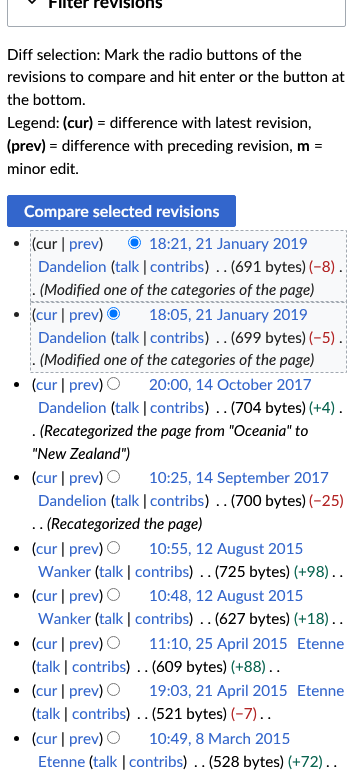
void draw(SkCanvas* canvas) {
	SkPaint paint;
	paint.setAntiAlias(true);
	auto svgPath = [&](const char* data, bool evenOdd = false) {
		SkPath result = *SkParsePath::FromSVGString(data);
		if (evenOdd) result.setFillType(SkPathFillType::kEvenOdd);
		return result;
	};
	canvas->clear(0xffffffff);
	paint.setStroke(true);
	paint.setStrokeWidth(1);
	paint.setColor(0xffa2a9b1);
	canvas->drawRoundRect(SkRect::MakeXYWH(7.5, -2.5, 338, 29), 1.5, 1.5, paint);
	canvas->drawImageRect(SkImages::DeferredFromEncodedData(SkData::MakeFromFileName("img1.png")), SkRect::MakeXYWH(28, 0, 8, 4), SkSamplingOptions());
	SkFont f1(fontMgr->matchFamilyStyle("Lato", SkFontStyle::Bold()), 17.5);
	f1.setSubpixel(true);
	paint.setStroke(false);
	paint.setColor(0xff000000);
	canvas->drawString("Filter revisions", 48, 8, f1, paint);
	SkFont f2(fontMgr->matchFamilyStyle("Lato", SkFontStyle::Normal()), 15.2);
	f2.setSubpixel(true);
	canvas->drawString("Diff selection: Mark the radio buttons of the", 7, 60, f2, paint);
	canvas->drawString("revisions to compare and hit enter or the button at", 7, 82, f2, paint);
	canvas->drawString("the bottom.", 7, 105, f2, paint);
	canvas->drawString("Legend:", 7, 128, f2, paint);
	SkFont f3(fontMgr->matchFamilyStyle("Lato", SkFontStyle::Bold()), 15.2);
	f3.setSubpixel(true);
	canvas->drawString("(cur)", 63, 128, f3, paint);
	canvas->drawString("= difference with latest revision,", 97, 128, f2, paint);
	canvas->drawString("(prev)", 7, 151, f3, paint);
	canvas->drawString("= difference with preceding revision,", 49, 151, f2, paint);
	canvas->drawString("m", 297, 151, f3, paint);
	canvas->drawString("=", 314, 151, f2, paint);
	canvas->drawString("minor edit.", 7, 174, f2, paint);
	paint.setColor(0xff3366cc);
	canvas->drawRoundRect(SkRect::MakeXYWH(7.5, 195.5, 228, 31), 1.5, 1.5, paint);
	paint.setStroke(true);
	canvas->drawRoundRect(SkRect::MakeXYWH(7.5, 195.5, 228, 31), 1.5, 1.5, paint);
	SkFont f4(fontMgr->matchFamilyStyle("Lato", SkFontStyle::Bold()), 16);
	f4.setSubpixel(true);
	paint.setStroke(false);
	paint.setColor(0xffffffff);
	canvas->drawString("Compare selected revisions", 24, 217, f4, paint);
	paint.setColor(0xfff8f9fa);
	canvas->drawRect(SkRect::MakeXYWH(31, 231, 315, 141), paint);
	paint.setColor(0xff222222);
	canvas->drawString("(cur |", 32, 249, f2, paint);
	paint.setColor(0xff3366cc);
	canvas->drawString("prev", 69, 249, f2, paint);
	paint.setColor(0xff222222);
	canvas->drawString(")", 99, 249, f2, paint);
	paint.setColor(0xffffffff);
	canvas->drawCircle(134.5, 242.5, 6, paint);
	paint.setStroke(true);
	paint.setColor(0xff0075ff);
	canvas->drawCircle(134.5, 242.5, 6, paint);
	paint.setStroke(false);
	canvas->drawCircle(134.5, 242.5, 4, paint);
	paint.setColor(0xff3366cc);
	canvas->drawString("18:21, 21 January 2019", 149, 249, f2, paint);
	canvas->drawString("Dandelion", 38, 272, f2, paint);
	paint.setColor(0xff222222);
	canvas->drawString("(", 111, 272, f2, paint);
	paint.setColor(0xff3366cc);
	canvas->drawString("talk", 115, 272, f2, paint);
	paint.setColor(0xff222222);
	canvas->drawString("|", 143, 272, f2, paint);
	paint.setColor(0xff3366cc);
	canvas->drawString("contribs", 150, 272, f2, paint);
	paint.setColor(0xff222222);
	canvas->drawString(")", 205, 272, f2, paint);
	canvas->drawString(". . (691 bytes)", 216, 272, f2, paint);
	paint.setColor(0xffb32424);
	canvas->drawString("(−8)", 309, 272, f2, paint);
	paint.setColor(0xff222222);
	canvas->drawString(".", 339, 272, f2, paint);
	canvas->drawString(".", 32, 295, f2, paint);
	SkFont f5(fontMgr->matchFamilyStyle("Lato", SkFontStyle::Italic()), 15.2);
	f5.setSubpixel(true);
	canvas->drawString("(Modified one of the categories of the page)", 40, 295, f5, paint);
	paint.setStroke(true);
	paint.setColor(0xffa2a9b1);
	paint.setPathEffect(SkDashPathEffect::Make({{3, 2}}, 0));
	canvas->drawPath(svgPath("M30.5 230.5H346.5V302.5H30.5Z"), paint);
	paint.setPathEffect(nullptr);
	paint.setStroke(false);
	paint.setColor(0xff222222);
	canvas->drawCircle(16.5, 243.5, 2.5, paint);
	canvas->drawString("(", 32, 320, f2, paint);
	paint.setColor(0xff3366cc);
	canvas->drawString("cur", 36, 320, f2, paint);
	paint.setColor(0xff222222);
	canvas->drawString("|", 61, 320, f2, paint);
	paint.setColor(0xff3366cc);
	canvas->drawString("prev", 69, 320, f2, paint);
	paint.setColor(0xff222222);
	canvas->drawString(")", 99, 320, f2, paint);
	paint.setColor(0xffffffff);
	canvas->drawCircle(113.5, 313.5, 6, paint);
	paint.setStroke(true);
	paint.setColor(0xff0075ff);
	canvas->drawCircle(113.5, 313.5, 6, paint);
	paint.setStroke(false);
	canvas->drawCircle(113.5, 313.5, 4, paint);
	paint.setColor(0xff3366cc);
	canvas->drawString("18:05, 21 January 2019", 149, 320, f2, paint);
	canvas->drawString("Dandelion", 38, 343, f2, paint);
	paint.setColor(0xff222222);
	canvas->drawString("(", 111, 343, f2, paint);
	paint.setColor(0xff3366cc);
	canvas->drawString("talk", 115, 343, f2, paint);
	paint.setColor(0xff222222);
	canvas->drawString("|", 143, 343, f2, paint);
	paint.setColor(0xff3366cc);
	canvas->drawString("contribs", 150, 343, f2, paint);
	paint.setColor(0xff222222);
	canvas->drawString(")", 205, 343, f2, paint);
	canvas->drawString(". . (699 bytes)", 216, 343, f2, paint);
	paint.setColor(0xffb32424);
	canvas->drawString("(−5)", 309, 343, f2, paint);
	paint.setColor(0xff222222);
	canvas->drawString(".", 339, 343, f2, paint);
	canvas->drawString(".", 32, 365, f2, paint);
	canvas->drawString("(Modified one of the categories of the page)", 40, 365, f5, paint);
	paint.setStroke(true);
	paint.setColor(0xffa2a9b1);
	paint.setPathEffect(SkDashPathEffect::Make({{3, 2}}, 0));
	canvas->drawPath(svgPath("M30.5 301.5H346.5V372.5H30.5Z"), paint);
	paint.setPathEffect(nullptr);
	paint.setStroke(false);
	paint.setColor(0xff222222);
	canvas->drawCircle(16.5, 314.5, 2.5, paint);
	paint.setColor(0xff000000);
	canvas->drawCircle(16.5, 384.5, 2.5, paint);
	canvas->drawString("(", 32, 390, f2, paint);
	paint.setColor(0xff3366cc);
	canvas->drawString("cur", 36, 390, f2, paint);
	paint.setColor(0xff000000);
	canvas->drawString("|", 61, 390, f2, paint);
	paint.setColor(0xff3366cc);
	canvas->drawString("prev", 69, 390, f2, paint);
	paint.setColor(0xff000000);
	canvas->drawString(")", 99, 390, f2, paint);
	paint.setStroke(true);
	paint.setColor(0xff767676);
	canvas->drawCircle(113.5, 383.5, 6, paint);
	paint.setStroke(false);
	paint.setColor(0xff3366cc);
	canvas->drawString("20:00, 14 October 2017", 149, 390, f2, paint);
	canvas->drawString("Dandelion", 38, 413, f2, paint);
	paint.setColor(0xff000000);
	canvas->drawString("(", 111, 413, f2, paint);
	paint.setColor(0xff3366cc);
	canvas->drawString("talk", 115, 413, f2, paint);
	paint.setColor(0xff000000);
	canvas->drawString("|", 143, 413, f2, paint);
	paint.setColor(0xff3366cc);
	canvas->drawString("contribs", 150, 413, f2, paint);
	paint.setColor(0xff000000);
	canvas->drawString(")", 205, 413, f2, paint);
	canvas->drawString(". . (704 bytes)", 216, 413, f2, paint);
	paint.setColor(0xff096450);
	canvas->drawString("(+4)", 309, 413, f2, paint);
	paint.setColor(0xff000000);
	canvas->drawString(".", 339, 413, f2, paint);
	canvas->drawString(".", 32, 436, f2, paint);
	canvas->drawString("(Recategorized the page from \"Oceania\" to", 40, 436, f5, paint);
	canvas->drawString("\"New Zealand\")", 32, 459, f5, paint);
	canvas->drawCircle(16.5, 477.5, 2.5, paint);
	canvas->drawString("(", 32, 483, f2, paint);
	paint.setColor(0xff3366cc);
	canvas->drawString("cur", 36, 483, f2, paint);
	paint.setColor(0xff000000);
	canvas->drawString("|", 61, 483, f2, paint);
	paint.setColor(0xff3366cc);
	canvas->drawString("prev", 69, 483, f2, paint);
	paint.setColor(0xff000000);
	canvas->drawString(")", 99, 483, f2, paint);
	paint.setStroke(true);
	paint.setColor(0xff767676);
	canvas->drawCircle(113.5, 476.5, 6, paint);
	paint.setStroke(false);
	paint.setColor(0xff3366cc);
	canvas->drawString("10:25, 14 September 2017", 149, 483, f2, paint);
	canvas->drawString("Dandelion", 38, 506, f2, paint);
	paint.setColor(0xff000000);
	canvas->drawString("(", 111, 506, f2, paint);
	paint.setColor(0xff3366cc);
	canvas->drawString("talk", 115, 506, f2, paint);
	paint.setColor(0xff000000);
	canvas->drawString("|", 143, 506, f2, paint);
	paint.setColor(0xff3366cc);
	canvas->drawString("contribs", 150, 506, f2, paint);
	paint.setColor(0xff000000);
	canvas->drawString(")", 205, 506, f2, paint);
	canvas->drawString(". . (700 bytes)", 216, 506, f2, paint);
	paint.setColor(0xffb32424);
	canvas->drawString("(−25)", 309, 506, f2, paint);
	paint.setColor(0xff000000);
	canvas->drawString(". .", 32, 529, f2, paint);
	canvas->drawString("(Recategorized the page)", 47, 529, f5, paint);
	canvas->drawCircle(16.5, 548.5, 2.5, paint);
	canvas->drawString("(", 32, 554, f2, paint);
	paint.setColor(0xff3366cc);
	canvas->drawString("cur", 36, 554, f2, paint);
	paint.setColor(0xff000000);
	canvas->drawString("|", 61, 554, f2, paint);
	paint.setColor(0xff3366cc);
	canvas->drawString("prev", 69, 554, f2, paint);
	paint.setColor(0xff000000);
	canvas->drawString(")", 99, 554, f2, paint);
	paint.setStroke(true);
	paint.setColor(0xff767676);
	canvas->drawCircle(113.5, 547.5, 6, paint);
	paint.setStroke(false);
	paint.setColor(0xff3366cc);
	canvas->drawString("10:55, 12 August 2015", 149, 554, f2, paint);
	canvas->drawString("Wanker", 38, 577, f2, paint);
	paint.setColor(0xff000000);
	canvas->drawString("(", 95, 577, f2, paint);
	paint.setColor(0xff3366cc);
	canvas->drawString("talk", 99, 577, f2, paint);
	paint.setColor(0xff000000);
	canvas->drawString("|", 127, 577, f2, paint);
	paint.setColor(0xff3366cc);
	canvas->drawString("contribs", 135, 577, f2, paint);
	paint.setColor(0xff000000);
	canvas->drawString(")", 189, 577, f2, paint);
	canvas->drawString(". . (725 bytes)", 200, 577, f2, paint);
	paint.setColor(0xff096450);
	canvas->drawString("(+98)", 294, 577, f2, paint);
	paint.setColor(0xff000000);
	canvas->drawString(". .", 332, 577, f2, paint);
	canvas->drawCircle(16.5, 595.5, 2.5, paint);
	canvas->drawString("(", 32, 601, f2, paint);
	paint.setColor(0xff3366cc);
	canvas->drawString("cur", 36, 601, f2, paint);
	paint.setColor(0xff000000);
	canvas->drawString("|", 61, 601, f2, paint);
	paint.setColor(0xff3366cc);
	canvas->drawString("prev", 69, 601, f2, paint);
	paint.setColor(0xff000000);
	canvas->drawString(")", 99, 601, f2, paint);
	paint.setStroke(true);
	paint.setColor(0xff767676);
	canvas->drawCircle(113.5, 594.5, 6, paint);
	paint.setStroke(false);
	paint.setColor(0xff3366cc);
	canvas->drawString("10:48, 12 August 2015", 149, 601, f2, paint);
	canvas->drawString("Wanker", 38, 624, f2, paint);
	paint.setColor(0xff000000);
	canvas->drawString("(", 95, 624, f2, paint);
	paint.setColor(0xff3366cc);
	canvas->drawString("talk", 99, 624, f2, paint);
	paint.setColor(0xff000000);
	canvas->drawString("|", 127, 624, f2, paint);
	paint.setColor(0xff3366cc);
	canvas->drawString("contribs", 135, 624, f2, paint);
	paint.setColor(0xff000000);
	canvas->drawString(")", 189, 624, f2, paint);
	canvas->drawString(". . (627 bytes)", 200, 624, f2, paint);
	paint.setColor(0xff096450);
	canvas->drawString("(+18)", 294, 624, f2, paint);
	paint.setColor(0xff000000);
	canvas->drawString(". .", 332, 624, f2, paint);
	canvas->drawString("(", 32, 649, f2, paint);
	paint.setColor(0xff3366cc);
	canvas->drawString("cur", 36, 649, f2, paint);
	paint.setColor(0xff000000);
	canvas->drawString("|", 61, 649, f2, paint);
	paint.setColor(0xff3366cc);
	canvas->drawString("prev", 69, 649, f2, paint);
	paint.setColor(0xff000000);
	canvas->drawString(")", 99, 649, f2, paint);
	paint.setStroke(true);
	paint.setColor(0xff767676);
	canvas->drawCircle(113.5, 642.5, 6, paint);
	paint.setStroke(false);
	paint.setColor(0xff3366cc);
	canvas->drawString("11:10, 25 April 2015", 149, 649, f2, paint);
	paint.setColor(0xff000000);
	canvas->drawCircle(16.5, 643.5, 2.5, paint);
	paint.setColor(0xff3366cc);
	canvas->drawString("Etenne", 297, 649, f2, paint);
	paint.setColor(0xff000000);
	canvas->drawString("(", 32, 672, f2, paint);
	paint.setColor(0xff3366cc);
	canvas->drawString("talk", 36, 672, f2, paint);
	paint.setColor(0xff000000);
	canvas->drawString("|", 64, 672, f2, paint);
	paint.setColor(0xff3366cc);
	canvas->drawString("contribs", 72, 672, f2, paint);
	paint.setColor(0xff000000);
	canvas->drawString(")", 126, 672, f2, paint);
	canvas->drawString(". . (609 bytes)", 137, 672, f2, paint);
	paint.setColor(0xff096450);
	canvas->drawString("(+88)", 231, 672, f2, paint);
	paint.setColor(0xff000000);
	canvas->drawString(". .", 269, 672, f2, paint);
	canvas->drawString("(", 32, 696, f2, paint);
	paint.setColor(0xff3366cc);
	canvas->drawString("cur", 36, 696, f2, paint);
	paint.setColor(0xff000000);
	canvas->drawString("|", 61, 696, f2, paint);
	paint.setColor(0xff3366cc);
	canvas->drawString("prev", 69, 696, f2, paint);
	paint.setColor(0xff000000);
	canvas->drawString(")", 99, 696, f2, paint);
	paint.setStroke(true);
	paint.setColor(0xff767676);
	canvas->drawCircle(113.5, 689.5, 6, paint);
	paint.setStroke(false);
	paint.setColor(0xff3366cc);
	canvas->drawString("19:03, 21 April 2015", 149, 696, f2, paint);
	paint.setColor(0xff000000);
	canvas->drawCircle(16.5, 690.5, 2.5, paint);
	paint.setColor(0xff3366cc);
	canvas->drawString("Etenne", 297, 696, f2, paint);
	paint.setColor(0xff000000);
	canvas->drawString("(", 32, 719, f2, paint);
	paint.setColor(0xff3366cc);
	canvas->drawString("talk", 36, 719, f2, paint);
	paint.setColor(0xff000000);
	canvas->drawString("|", 64, 719, f2, paint);
	paint.setColor(0xff3366cc);
	canvas->drawString("contribs", 72, 719, f2, paint);
	paint.setColor(0xff000000);
	canvas->drawString(")", 126, 719, f2, paint);
	canvas->drawString(". . (521 bytes)", 137, 719, f2, paint);
	paint.setColor(0xffb32424);
	canvas->drawString("(−7)", 231, 719, f2, paint);
	paint.setColor(0xff000000);
	canvas->drawString(". .", 260, 719, f2, paint);
	canvas->drawCircle(16.5, 738.5, 2.5, paint);
	canvas->drawString("(", 32, 744, f2, paint);
	paint.setColor(0xff3366cc);
	canvas->drawString("cur", 36, 744, f2, paint);
	paint.setColor(0xff000000);
	canvas->drawString("|", 61, 744, f2, paint);
	paint.setColor(0xff3366cc);
	canvas->drawString("prev", 69, 744, f2, paint);
	paint.setColor(0xff000000);
	canvas->drawString(")", 99, 744, f2, paint);
	paint.setStroke(true);
	paint.setColor(0xff767676);
	canvas->drawCircle(113.5, 737.5, 6, paint);
	paint.setStroke(false);
	paint.setColor(0xff3366cc);
	canvas->drawString("10:49, 8 March 2015", 149, 744, f2, paint);
	canvas->drawString("Etenne", 38, 767, f2, paint);
	paint.setColor(0xff000000);
	canvas->drawString("(", 89, 767, f2, paint);
	paint.setColor(0xff3366cc);
	canvas->drawString("talk", 93, 767, f2, paint);
	paint.setColor(0xff000000);
	canvas->drawString("|", 122, 767, f2, paint);
	paint.setColor(0xff3366cc);
	canvas->drawString("contribs", 129, 767, f2, paint);
	paint.setColor(0xff000000);
	canvas->drawString(")", 183, 767, f2, paint);
	canvas->drawString(". . (528 bytes)", 194, 767, f2, paint);
	paint.setColor(0xff096450);
	canvas->drawString("(+72)", 288, 767, f2, paint);
	paint.setColor(0xff000000);
	canvas->drawString(". .", 326, 767, f2, paint);
}
